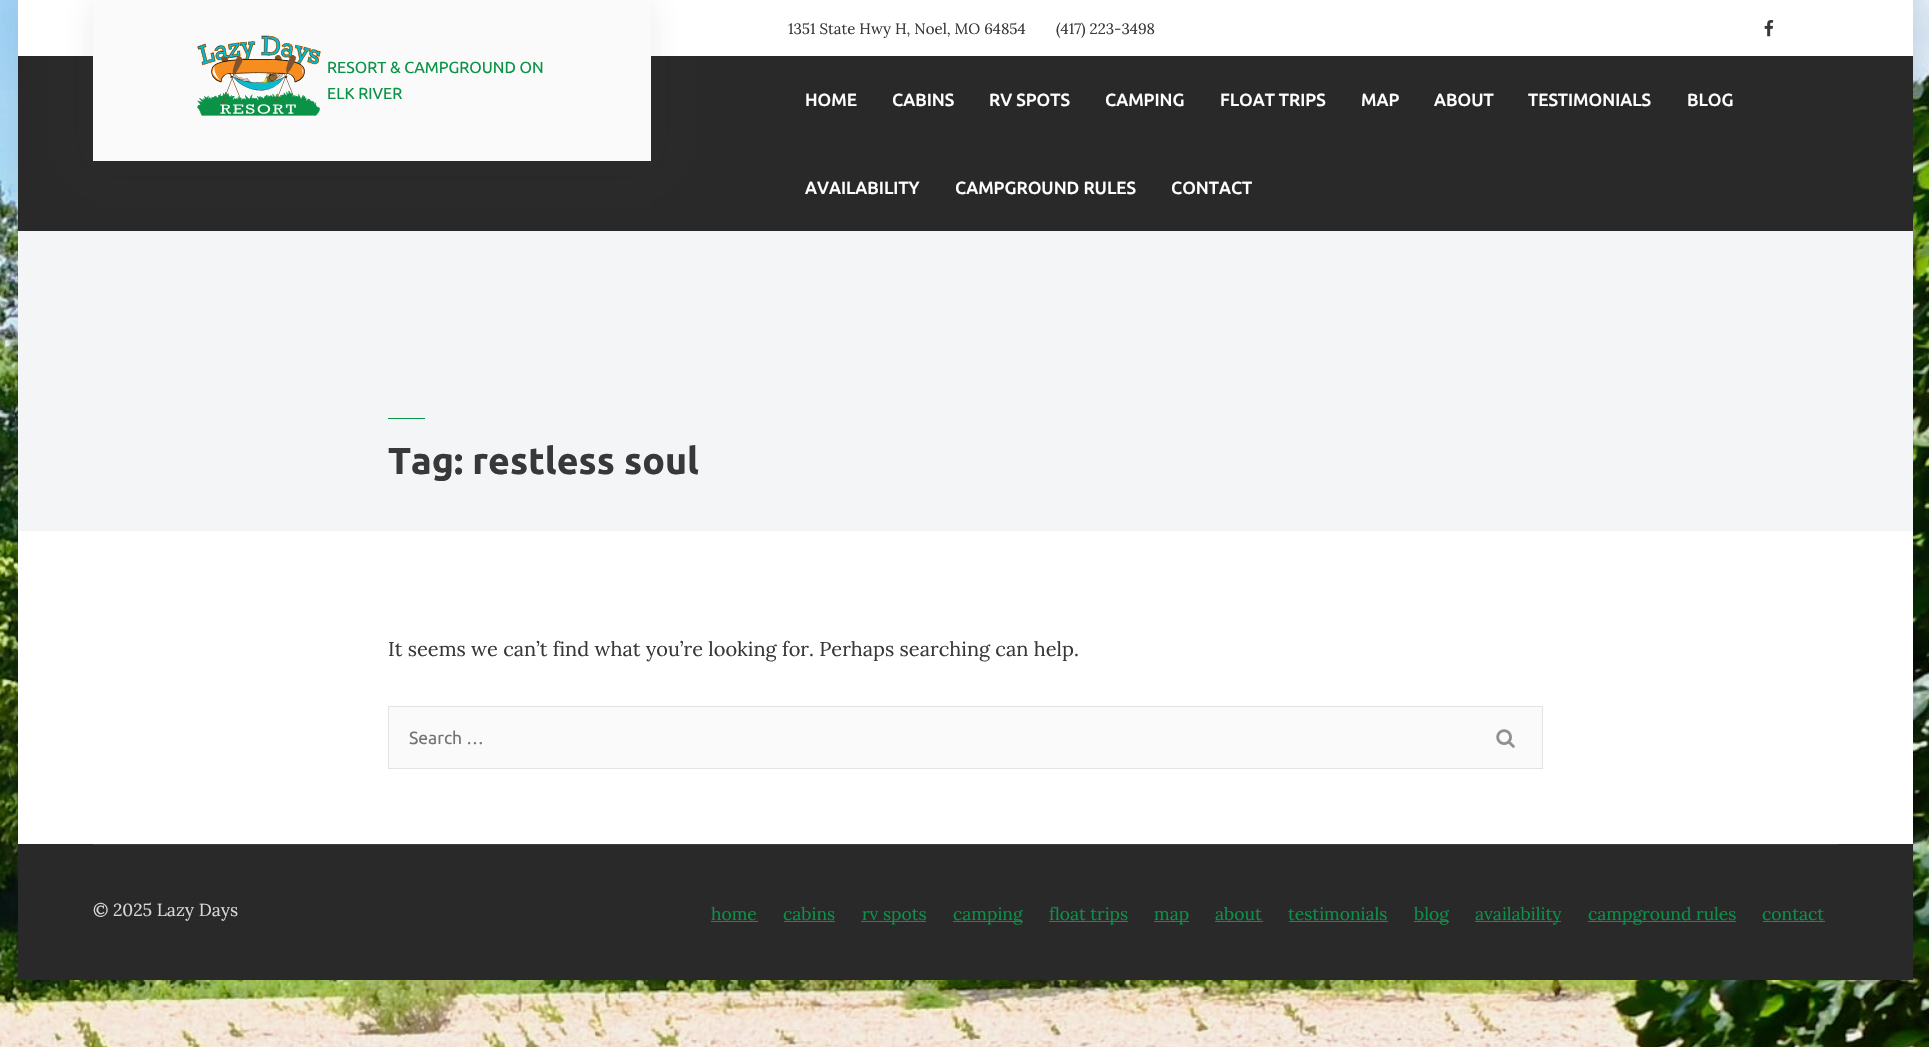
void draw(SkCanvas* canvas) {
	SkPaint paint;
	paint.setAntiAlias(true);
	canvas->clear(0xffffffff);
	canvas->drawImageRect(SkImages::DeferredFromEncodedData(SkData::MakeFromFileName("img1.png")), SkRect::MakeXYWH(0, 0, 1929, 1047), SkSamplingOptions());
	paint.setColor(0x1a3d3d3d);
	paint.setMaskFilter(SkMaskFilter::MakeBlur(kNormal_SkBlurStyle, 15));
	canvas->drawRect(SkRect::MakeXYWH(18, 0, 1895, 980), paint);
	paint.setMaskFilter(nullptr);
	paint.setColor(0xffffffff);
	canvas->drawRect(SkRect::MakeXYWH(18, 0, 1895, 844), paint);
	paint.setColor(0xff292929);
	canvas->drawRect(SkRect::MakeXYWH(18, 56, 1895, 175), paint);
	paint.setColor(0x1a3d3d3d);
	paint.setMaskFilter(SkMaskFilter::MakeBlur(kNormal_SkBlurStyle, 15));
	canvas->drawRect(SkRect::MakeXYWH(93, 0, 558, 161), paint);
	paint.setMaskFilter(nullptr);
	paint.setColor(0xfffafafa);
	canvas->drawRect(SkRect::MakeXYWH(93, 0, 558, 161), paint);
	canvas->drawImageRect(SkImages::DeferredFromEncodedData(SkData::MakeFromFileName("img2.png")), SkRect::MakeXYWH(197, 35, 124, 81), SkSamplingOptions());
	SkFont f1(fontMgr->matchFamilyStyle("Ubuntu", SkFontStyle::Normal()), 16);
	f1.setSubpixel(true);
	paint.setColor(0xff0a9247);
	canvas->drawString("RESORT & CAMPGROUND ON", 327, 73, f1, paint);
	canvas->drawString("ELK RIVER", 327, 99, f1, paint);
	SkFont f2(fontMgr->matchFamilyStyle("Lora", SkFontStyle::Normal()), 15);
	f2.setSubpixel(true);
	paint.setColor(0xff383838);
	canvas->drawString("1351 State Hwy H, Noel, MO 64854", 788, 34, f2, paint);
	canvas->drawString("(417) 223-3498", 1056, 34, f2, paint);
	canvas->drawImageRect(SkImages::DeferredFromEncodedData(SkData::MakeFromFileName("img3.png")), SkRect::MakeXYWH(1764, 20, 10, 17), SkSamplingOptions());
	SkFont f3(fontMgr->matchFamilyStyle("Ubuntu", SkFontStyle(500, SkFontStyle::kNormal_Width, SkFontStyle::kUpright_Slant)), 17.5);
	f3.setSubpixel(true);
	paint.setColor(0xffffffff);
	canvas->drawString("HOME", 805, 106, f3, paint);
	canvas->drawString("CABINS", 892, 106, f3, paint);
	canvas->drawString("RV SPOTS", 989, 106, f3, paint);
	canvas->drawString("CAMPING", 1105, 106, f3, paint);
	canvas->drawString("FLOAT TRIPS", 1220, 106, f3, paint);
	canvas->drawString("MAP", 1361, 106, f3, paint);
	canvas->drawString("ABOUT", 1434, 106, f3, paint);
	canvas->drawString("TESTIMONIALS", 1528, 106, f3, paint);
	canvas->drawString("BLOG", 1687, 106, f3, paint);
	canvas->drawString("AVAILABILITY", 805, 194, f3, paint);
	canvas->drawString("CAMPGROUND RULES", 955, 194, f3, paint);
	canvas->drawString("CONTACT", 1171, 194, f3, paint);
	paint.setColor(0xfff3f5f7);
	canvas->drawRect(SkRect::MakeXYWH(18, 231, 1895, 300), paint);
	paint.setColor(0xff0a9247);
	canvas->drawRect(SkRect::MakeXYWH(388, 418, 37, 1), paint);
	SkFont f4(fontMgr->matchFamilyStyle("Ubuntu", SkFontStyle::Bold()), 37.5);
	f4.setSubpixel(true);
	paint.setColor(0xff383838);
	canvas->drawString("Tag: restless soul", 388, 474, f4, paint);
	SkFont f5(fontMgr->matchFamilyStyle("Lora", SkFontStyle::Normal()), 20);
	f5.setSubpixel(true);
	canvas->drawString("It seems we can’t find what you’re looking for. Perhaps searching can help.", 388, 656, f5, paint);
	paint.setColor(0xfffafafa);
	canvas->drawRect(SkRect::MakeXYWH(388.5, 706.5, 1154, 62), paint);
	paint.setStroke(true);
	paint.setStrokeWidth(1);
	paint.setColor(0xffe3e3e3);
	canvas->drawRect(SkRect::MakeXYWH(388.5, 706.5, 1154, 62), paint);
	SkFont f6(fontMgr->matchFamilyStyle("Ubuntu", SkFontStyle::Normal()), 17.5);
	f6.setSubpixel(true);
	paint.setStroke(false);
	paint.setColor(0xff757575);
	canvas->drawString("Search …", 409, 744, f6, paint);
	canvas->drawImageRect(SkImages::DeferredFromEncodedData(SkData::MakeFromFileName("img4.png")), SkRect::MakeXYWH(1496, 729, 19, 19), SkSamplingOptions());
	paint.setColor(0xff292929);
	canvas->drawRect(SkRect::MakeXYWH(18, 844, 1895, 136), paint);
	paint.setColor(0xff3d3d3d);
	canvas->drawRect(SkRect::MakeXYWH(93, 844, 1745, 1), paint);
	SkFont f7(fontMgr->matchFamilyStyle("Lora", SkFontStyle::Normal()), 17.5);
	f7.setSubpixel(true);
	paint.setColor(0xffd7d7d7);
	canvas->drawString("© 2025 Lazy Days", 93, 916, f7, paint);
	paint.setColor(0xff0a9247);
	canvas->drawString("home", 711, 920, f7, paint);
	canvas->drawRect(SkRect::MakeXYWH(711, 921, 47, 1), paint);
	canvas->drawString("cabins", 783, 920, f7, paint);
	canvas->drawRect(SkRect::MakeXYWH(784, 921, 51, 1), paint);
	canvas->drawRect(SkRect::MakeXYWH(861, 921, 65, 1), paint);
	canvas->drawString("rv spots", 862, 920, f7, paint);
	canvas->drawRect(SkRect::MakeXYWH(953, 921, 70, 1), paint);
	canvas->drawString("camping", 953, 920, f7, paint);
	canvas->drawRect(SkRect::MakeXYWH(1049, 921, 79, 1), paint);
	canvas->drawString("float trips", 1049, 920, f7, paint);
	canvas->drawRect(SkRect::MakeXYWH(1154, 921, 35, 1), paint);
	canvas->drawString("map", 1154, 920, f7, paint);
	canvas->drawString("about", 1215, 920, f7, paint);
	canvas->drawRect(SkRect::MakeXYWH(1215, 921, 48, 1), paint);
	canvas->drawString("testimonials", 1288, 920, f7, paint);
	canvas->drawRect(SkRect::MakeXYWH(1289, 921, 99, 1), paint);
	canvas->drawRect(SkRect::MakeXYWH(1414, 921, 35, 1), paint);
	canvas->drawString("blog", 1414, 920, f7, paint);
	canvas->drawRect(SkRect::MakeXYWH(1475, 921, 86, 1), paint);
	canvas->drawString("availability", 1475, 920, f7, paint);
	canvas->drawRect(SkRect::MakeXYWH(1588, 921, 148, 1), paint);
	canvas->drawString("campground rules", 1588, 920, f7, paint);
	canvas->drawString("contact", 1762, 920, f7, paint);
	canvas->drawRect(SkRect::MakeXYWH(1763, 921, 62, 1), paint);
}
